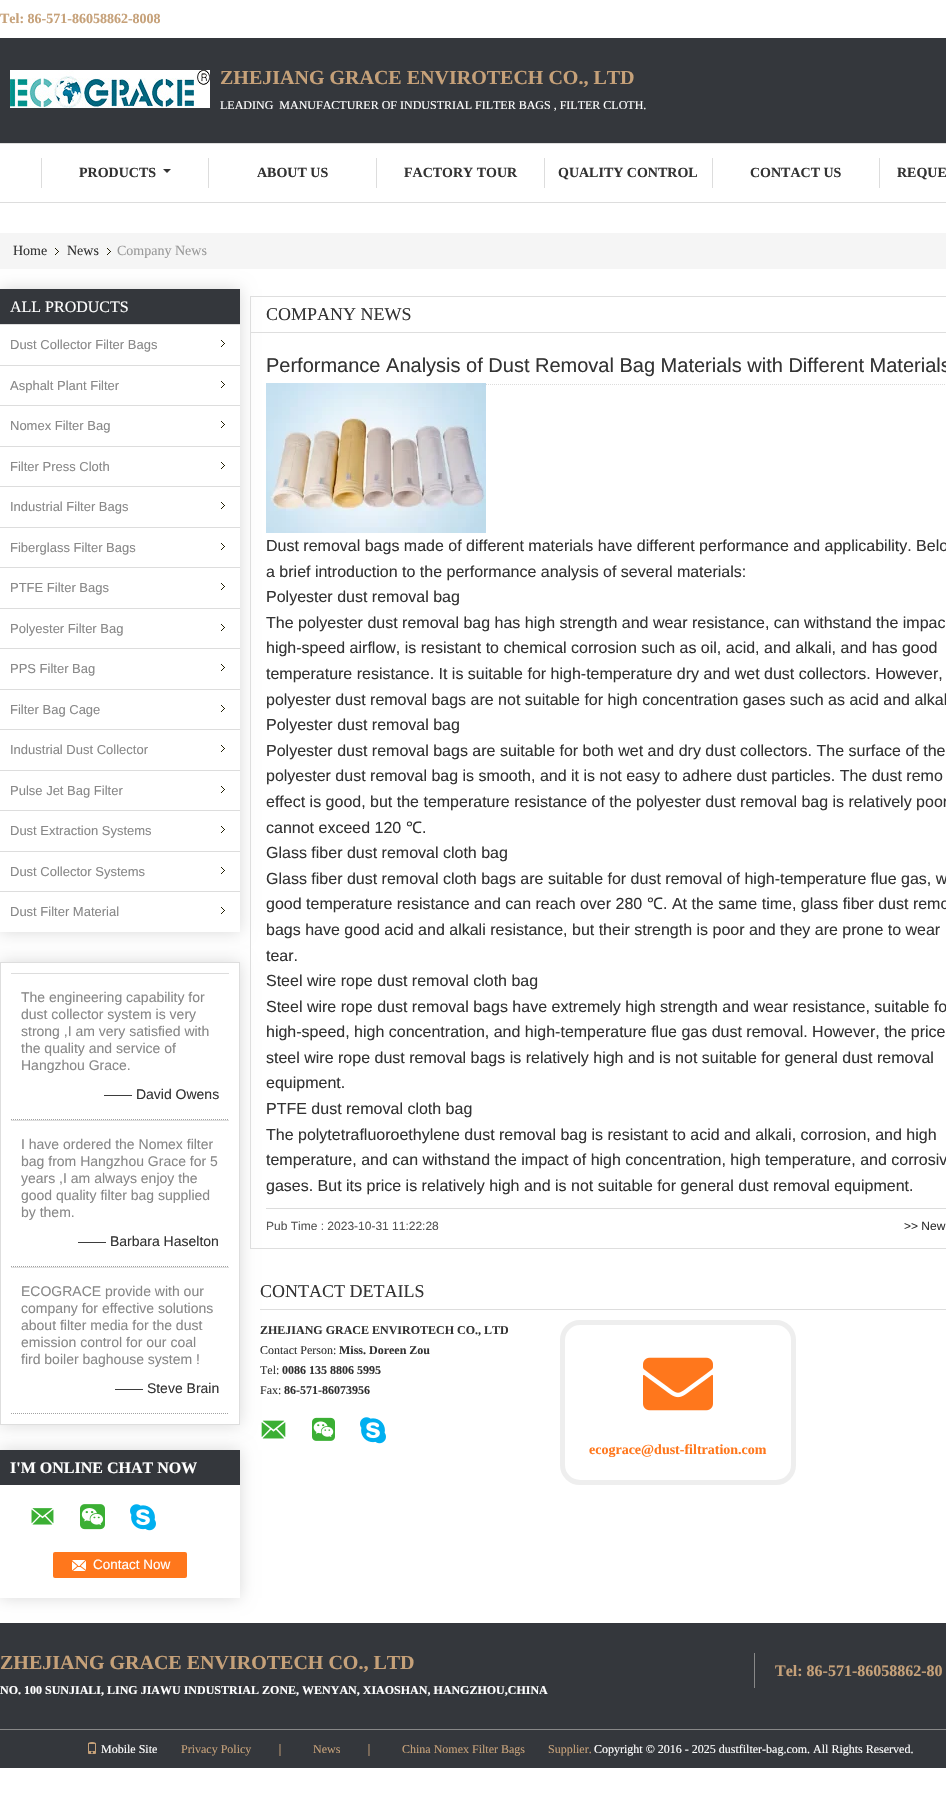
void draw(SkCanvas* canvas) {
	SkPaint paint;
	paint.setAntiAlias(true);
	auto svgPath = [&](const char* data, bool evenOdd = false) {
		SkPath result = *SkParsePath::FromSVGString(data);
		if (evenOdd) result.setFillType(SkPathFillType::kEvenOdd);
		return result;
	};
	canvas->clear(0xffffffff);
	SkFont f1(fontMgr->matchFamilyStyle("Liberation Serif", SkFontStyle::Bold()), 14);
	f1.setSubpixel(true);
	paint.setColor(0xffc6a179);
	canvas->drawString("Tel: 86-571-86058862-8008", 0, 23, f1, paint);
	paint.setColor(0xff34373c);
	canvas->drawRect(SkRect::MakeXYWH(0, 38, 946, 105), paint);
	canvas->drawImageRect(SkImages::DeferredFromEncodedData(SkData::MakeFromFileName("img1.png")), SkRect::MakeXYWH(10, 70, 200, 38), SkSamplingOptions());
	SkFont f2(fontMgr->matchFamilyStyle("Liberation Serif", SkFontStyle::Bold()), 20);
	f2.setSubpixel(true);
	paint.setColor(0xffc6a179);
	canvas->drawString("ZHEJIANG GRACE ENVIROTECH CO., LTD", 220, 84, f2, paint);
	SkFont f3(fontMgr->matchFamilyStyle("Liberation Serif", SkFontStyle::Normal()), 12);
	f3.setSubpixel(true);
	paint.setColor(0xffffffff);
	canvas->drawString("LEADING  MANUFACTURER OF INDUSTRIAL FILTER BAGS , FILTER CLOTH.", 220, 109, f3, paint);
	paint.setStroke(true);
	paint.setStrokeWidth(1);
	paint.setColor(0xffdddddd);
	canvas->drawRect(SkRect::MakeXYWH(-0.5, 143.5, 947, 59), paint);
	paint.setStroke(false);
	canvas->drawRect(SkRect::MakeXYWH(41, 158, 1, 30), paint);
	canvas->drawRect(SkRect::MakeXYWH(208, 158, 1, 30), paint);
	paint.setColor(0xff333333);
	canvas->drawString("PRODUCTS", 79, 177, f1, paint);
	canvas->drawPath(svgPath("M163 169H171L167 173Z"), paint);
	paint.setColor(0xffdddddd);
	canvas->drawRect(SkRect::MakeXYWH(376, 158, 1, 30), paint);
	paint.setColor(0xff333333);
	canvas->drawString("ABOUT US", 257, 177, f1, paint);
	paint.setColor(0xffdddddd);
	canvas->drawRect(SkRect::MakeXYWH(544, 158, 1, 30), paint);
	paint.setColor(0xff333333);
	canvas->drawString("FACTORY TOUR", 404, 177, f1, paint);
	paint.setColor(0xffdddddd);
	canvas->drawRect(SkRect::MakeXYWH(712, 158, 1, 30), paint);
	paint.setColor(0xff333333);
	canvas->drawString("QUALITY CONTROL", 558, 177, f1, paint);
	paint.setColor(0xffdddddd);
	canvas->drawRect(SkRect::MakeXYWH(879, 158, 1, 30), paint);
	paint.setColor(0xff333333);
	canvas->drawString("CONTACT US", 750, 177, f1, paint);
	canvas->drawString("REQUE", 897, 177, f1, paint);
	canvas->save();
	canvas->clipPath(svgPath("M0 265H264V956H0ZM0 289H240V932H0Z", true), true);
	paint.setColor(0x26000000);
	paint.setMaskFilter(SkMaskFilter::MakeBlur(kNormal_SkBlurStyle, 7.5));
	canvas->drawRect(SkRect::MakeXYWH(0, 289, 240, 643), paint);
	paint.setMaskFilter(nullptr);
	canvas->restore();
	paint.setColor(0xfff5f5f5);
	canvas->drawRect(SkRect::MakeXYWH(0, 233, 946, 36), paint);
	SkFont f4(fontMgr->matchFamilyStyle("Liberation Serif", SkFontStyle::Normal()), 14);
	f4.setSubpixel(true);
	paint.setColor(0xff333333);
	canvas->drawString("Home", 13, 255, f4, paint);
	canvas->drawImageRect(SkImages::DeferredFromEncodedData(SkData::MakeFromFileName("img2.png")), SkRect::MakeXYWH(55, 248, 4, 7), SkSamplingOptions());
	canvas->drawString("News", 67, 255, f4, paint);
	canvas->drawImageRect(SkImages::DeferredFromEncodedData(SkData::MakeFromFileName("img2.png")), SkRect::MakeXYWH(107, 248, 4, 7), SkSamplingOptions());
	paint.setColor(0xff999999);
	canvas->drawString("Company News", 117, 255, f4, paint);
	paint.setColor(0xff34373c);
	canvas->drawRect(SkRect::MakeXYWH(0, 289, 240, 35), paint);
	SkFont f5(fontMgr->matchFamilyStyle("Liberation Serif", SkFontStyle::Normal()), 16);
	f5.setSubpixel(true);
	paint.setColor(0xffffffff);
	canvas->drawString("ALL PRODUCTS", 10, 312, f5, paint);
	paint.setColor(0xffdddddd);
	canvas->drawRect(SkRect::MakeXYWH(0, 324, 240, 1), paint);
	SkFont f6(fontMgr->matchFamilyStyle("Liberation Sans", SkFontStyle::Normal()), 13);
	f6.setSubpixel(true);
	paint.setColor(0xff888888);
	canvas->drawString("Dust Collector Filter Bags", 10, 349, f6, paint);
	canvas->drawImageRect(SkImages::DeferredFromEncodedData(SkData::MakeFromFileName("img3.png")), SkRect::MakeXYWH(221, 340, 4, 7), SkSamplingOptions());
	paint.setColor(0xffdddddd);
	canvas->drawRect(SkRect::MakeXYWH(0, 365, 240, 1), paint);
	paint.setColor(0xff888888);
	canvas->drawString("Asphalt Plant Filter", 10, 390, f6, paint);
	canvas->drawImageRect(SkImages::DeferredFromEncodedData(SkData::MakeFromFileName("img3.png")), SkRect::MakeXYWH(221, 381, 4, 7), SkSamplingOptions());
	paint.setColor(0xffdddddd);
	canvas->drawRect(SkRect::MakeXYWH(0, 405, 240, 1), paint);
	paint.setColor(0xff888888);
	canvas->drawString("Nomex Filter Bag", 10, 430, f6, paint);
	canvas->drawImageRect(SkImages::DeferredFromEncodedData(SkData::MakeFromFileName("img3.png")), SkRect::MakeXYWH(221, 421, 4, 7), SkSamplingOptions());
	paint.setColor(0xffdddddd);
	canvas->drawRect(SkRect::MakeXYWH(0, 446, 240, 1), paint);
	paint.setColor(0xff888888);
	canvas->drawString("Filter Press Cloth", 10, 471, f6, paint);
	canvas->drawImageRect(SkImages::DeferredFromEncodedData(SkData::MakeFromFileName("img3.png")), SkRect::MakeXYWH(221, 462, 4, 7), SkSamplingOptions());
	paint.setColor(0xffdddddd);
	canvas->drawRect(SkRect::MakeXYWH(0, 486, 240, 1), paint);
	paint.setColor(0xff888888);
	canvas->drawString("Industrial Filter Bags", 10, 511, f6, paint);
	canvas->drawImageRect(SkImages::DeferredFromEncodedData(SkData::MakeFromFileName("img3.png")), SkRect::MakeXYWH(221, 502, 4, 7), SkSamplingOptions());
	paint.setColor(0xffdddddd);
	canvas->drawRect(SkRect::MakeXYWH(0, 527, 240, 1), paint);
	paint.setColor(0xff888888);
	canvas->drawString("Fiberglass Filter Bags", 10, 552, f6, paint);
	canvas->drawImageRect(SkImages::DeferredFromEncodedData(SkData::MakeFromFileName("img3.png")), SkRect::MakeXYWH(221, 543, 4, 7), SkSamplingOptions());
	paint.setColor(0xffdddddd);
	canvas->drawRect(SkRect::MakeXYWH(0, 567, 240, 1), paint);
	paint.setColor(0xff888888);
	canvas->drawString("PTFE Filter Bags", 10, 592, f6, paint);
	canvas->drawImageRect(SkImages::DeferredFromEncodedData(SkData::MakeFromFileName("img3.png")), SkRect::MakeXYWH(221, 583, 4, 7), SkSamplingOptions());
	paint.setColor(0xffdddddd);
	canvas->drawRect(SkRect::MakeXYWH(0, 608, 240, 1), paint);
	paint.setColor(0xff888888);
	canvas->drawString("Polyester Filter Bag", 10, 633, f6, paint);
	canvas->drawImageRect(SkImages::DeferredFromEncodedData(SkData::MakeFromFileName("img3.png")), SkRect::MakeXYWH(221, 624, 4, 7), SkSamplingOptions());
	paint.setColor(0xffdddddd);
	canvas->drawRect(SkRect::MakeXYWH(0, 648, 240, 1), paint);
	paint.setColor(0xff888888);
	canvas->drawString("PPS Filter Bag", 10, 673, f6, paint);
	canvas->drawImageRect(SkImages::DeferredFromEncodedData(SkData::MakeFromFileName("img3.png")), SkRect::MakeXYWH(221, 664, 4, 7), SkSamplingOptions());
	paint.setColor(0xffdddddd);
	canvas->drawRect(SkRect::MakeXYWH(0, 689, 240, 1), paint);
	paint.setColor(0xff888888);
	canvas->drawString("Filter Bag Cage", 10, 714, f6, paint);
	canvas->drawImageRect(SkImages::DeferredFromEncodedData(SkData::MakeFromFileName("img3.png")), SkRect::MakeXYWH(221, 705, 4, 7), SkSamplingOptions());
	paint.setColor(0xffdddddd);
	canvas->drawRect(SkRect::MakeXYWH(0, 729, 240, 1), paint);
	paint.setColor(0xff888888);
	canvas->drawString("Industrial Dust Collector", 10, 754, f6, paint);
	canvas->drawImageRect(SkImages::DeferredFromEncodedData(SkData::MakeFromFileName("img3.png")), SkRect::MakeXYWH(221, 745, 4, 7), SkSamplingOptions());
	paint.setColor(0xffdddddd);
	canvas->drawRect(SkRect::MakeXYWH(0, 770, 240, 1), paint);
	paint.setColor(0xff888888);
	canvas->drawString("Pulse Jet Bag Filter", 10, 795, f6, paint);
	canvas->drawImageRect(SkImages::DeferredFromEncodedData(SkData::MakeFromFileName("img3.png")), SkRect::MakeXYWH(221, 786, 4, 7), SkSamplingOptions());
	paint.setColor(0xffdddddd);
	canvas->drawRect(SkRect::MakeXYWH(0, 810, 240, 1), paint);
	paint.setColor(0xff888888);
	canvas->drawString("Dust Extraction Systems", 10, 835, f6, paint);
	canvas->drawImageRect(SkImages::DeferredFromEncodedData(SkData::MakeFromFileName("img3.png")), SkRect::MakeXYWH(221, 826, 4, 7), SkSamplingOptions());
	paint.setColor(0xffdddddd);
	canvas->drawRect(SkRect::MakeXYWH(0, 851, 240, 1), paint);
	paint.setColor(0xff888888);
	canvas->drawString("Dust Collector Systems", 10, 876, f6, paint);
	canvas->drawImageRect(SkImages::DeferredFromEncodedData(SkData::MakeFromFileName("img3.png")), SkRect::MakeXYWH(221, 867, 4, 7), SkSamplingOptions());
	paint.setColor(0xffdddddd);
	canvas->drawRect(SkRect::MakeXYWH(0, 891, 240, 1), paint);
	paint.setColor(0xff888888);
	canvas->drawString("Dust Filter Material", 10, 916, f6, paint);
	canvas->drawImageRect(SkImages::DeferredFromEncodedData(SkData::MakeFromFileName("img3.png")), SkRect::MakeXYWH(221, 907, 4, 7), SkSamplingOptions());
	canvas->save();
	canvas->clipPath(svgPath("M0 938H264V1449H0ZM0 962H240V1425H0Z", true), true);
	paint.setColor(0x26000000);
	paint.setMaskFilter(SkMaskFilter::MakeBlur(kNormal_SkBlurStyle, 7.5));
	canvas->drawRect(SkRect::MakeXYWH(0, 962, 240, 463), paint);
	paint.setMaskFilter(nullptr);
	canvas->restore();
	paint.setStroke(true);
	paint.setColor(0xffdedede);
	canvas->drawRect(SkRect::MakeXYWH(0.5, 962.5, 239, 462), paint);
	paint.setStroke(false);
	paint.setColor(0xffdddddd);
	canvas->drawRect(SkRect::MakeXYWH(11, 973, 218, 1), paint);
	paint.setStroke(true);
	paint.setColor(0xffa2a2a2);
	paint.setPathEffect(SkDashPathEffect::Make({{1, 1}}, 0));
	canvas->drawPath(svgPath("M11 1119.5H229"), paint);
	paint.setPathEffect(nullptr);
	SkFont f7(fontMgr->matchFamilyStyle("Liberation Sans", SkFontStyle::Normal()), 14);
	f7.setSubpixel(true);
	paint.setStroke(false);
	paint.setColor(0xff888888);
	canvas->drawString("The engineering capability for", 21, 1002, f7, paint);
	canvas->drawString("dust collector system is very", 21, 1019, f7, paint);
	canvas->drawString("strong ,I am very satisfied with", 21, 1036, f7, paint);
	canvas->drawString("the quality and service of", 21, 1053, f7, paint);
	canvas->drawString("Hangzhou Grace.", 21, 1070, f7, paint);
	paint.setColor(0xff333333);
	canvas->drawString("—— David Owens", 104, 1099, f7, paint);
	paint.setColor(0xffdddddd);
	canvas->drawRect(SkRect::MakeXYWH(11, 1120, 218, 1), paint);
	paint.setStroke(true);
	paint.setColor(0xffa2a2a2);
	paint.setPathEffect(SkDashPathEffect::Make({{1, 1}}, 0));
	canvas->drawPath(svgPath("M11 1266.5H229"), paint);
	paint.setPathEffect(nullptr);
	paint.setStroke(false);
	paint.setColor(0xff888888);
	canvas->drawString("I have ordered the Nomex filter", 21, 1149, f7, paint);
	canvas->drawString("bag from Hangzhou Grace for 5", 21, 1166, f7, paint);
	canvas->drawString("years ,I am always enjoy the", 21, 1183, f7, paint);
	canvas->drawString("good quality filter bag supplied", 21, 1200, f7, paint);
	canvas->drawString("by them.", 21, 1217, f7, paint);
	paint.setColor(0xff333333);
	canvas->drawString("—— Barbara Haselton", 78, 1246, f7, paint);
	paint.setColor(0xffdddddd);
	canvas->drawRect(SkRect::MakeXYWH(11, 1267, 218, 1), paint);
	paint.setStroke(true);
	paint.setColor(0xffa2a2a2);
	paint.setPathEffect(SkDashPathEffect::Make({{1, 1}}, 0));
	canvas->drawPath(svgPath("M11 1413.5H229"), paint);
	paint.setPathEffect(nullptr);
	paint.setStroke(false);
	paint.setColor(0xff888888);
	canvas->drawString("ECOGRACE provide with our", 21, 1296, f7, paint);
	canvas->drawString("company for effective solutions", 21, 1313, f7, paint);
	canvas->drawString("about filter media for the dust", 21, 1330, f7, paint);
	canvas->drawString("emission control for our coal", 21, 1347, f7, paint);
	canvas->drawString("fird boiler baghouse system !", 21, 1364, f7, paint);
	paint.setColor(0xff333333);
	canvas->drawString("—— Steve Brain", 115, 1393, f7, paint);
	canvas->save();
	canvas->clipPath(svgPath("M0 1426H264V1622H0ZM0 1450H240V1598H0Z", true), true);
	paint.setColor(0x26000000);
	paint.setMaskFilter(SkMaskFilter::MakeBlur(kNormal_SkBlurStyle, 7.5));
	canvas->drawRect(SkRect::MakeXYWH(0, 1450, 240, 148), paint);
	paint.setMaskFilter(nullptr);
	canvas->restore();
	paint.setColor(0xff34373c);
	canvas->drawRect(SkRect::MakeXYWH(0, 1450, 240, 35), paint);
	SkFont f8(fontMgr->matchFamilyStyle("Liberation Serif", SkFontStyle::Bold()), 16);
	f8.setSubpixel(true);
	paint.setColor(0xffffffff);
	canvas->drawString("I'M ONLINE CHAT NOW", 10, 1473, f8, paint);
	canvas->drawImageRect(SkImages::DeferredFromEncodedData(SkData::MakeFromFileName("img4.png")), SkRect::MakeXYWH(31, 1508, 23, 17), SkSamplingOptions());
	canvas->drawImageRect(SkImages::DeferredFromEncodedData(SkData::MakeFromFileName("img5.png")), SkRect::MakeXYWH(80, 1504, 25, 26), SkSamplingOptions());
	canvas->drawImageRect(SkImages::DeferredFromEncodedData(SkData::MakeFromFileName("img6.png")), SkRect::MakeXYWH(130, 1504, 26, 27), SkSamplingOptions());
	paint.setColor(0xffff771c);
	canvas->drawRoundRect(SkRect::MakeXYWH(53, 1552, 134, 26), 2, 2, paint);
	canvas->drawImageRect(SkImages::DeferredFromEncodedData(SkData::MakeFromFileName("img7.png")), SkRect::MakeXYWH(72, 1560, 14, 11), SkSamplingOptions());
	SkFont f9(fontMgr->matchFamilyStyle("Liberation Sans", SkFontStyle::Normal()), 13.5);
	f9.setSubpixel(true);
	paint.setColor(0xffffffff);
	canvas->drawString("Contact Now", 93, 1569, f9, paint);
	paint.setStroke(true);
	paint.setColor(0xffdedede);
	canvas->drawRect(SkRect::MakeXYWH(250.5, 296.5, 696, 952), paint);
	paint.setStroke(false);
	canvas->drawRect(SkRect::MakeXYWH(251, 332, 695, 1), paint);
	SkFont f10(fontMgr->matchFamilyStyle("Liberation Serif", SkFontStyle::Normal()), 18);
	f10.setSubpixel(true);
	paint.setColor(0xff333333);
	canvas->drawString("COMPANY NEWS", 266, 320, f10, paint);
	SkFont f11(fontMgr->matchFamilyStyle("Liberation Sans", SkFontStyle::Normal()), 20);
	f11.setSubpixel(true);
	canvas->drawString("Performance Analysis of Dust Removal Bag Materials with Different Materials", 266, 372, f11, paint);
	paint.setStroke(true);
	paint.setColor(0xffdcdcdc);
	paint.setPathEffect(SkDashPathEffect::Make({{1, 1}}, 0));
	canvas->drawPath(svgPath("M266 384.5H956"), paint);
	paint.setPathEffect(nullptr);
	canvas->drawImageRect(SkImages::DeferredFromEncodedData(SkData::MakeFromFileName("img8.png")), SkRect::MakeXYWH(266, 383, 220, 150), SkSamplingOptions());
	SkFont f12(fontMgr->matchFamilyStyle("Liberation Sans", SkFontStyle::Normal()), 16);
	f12.setSubpixel(true);
	paint.setStroke(false);
	paint.setColor(0xff333333);
	canvas->drawString("Dust removal bags made of different materials have different performance and applicability. Belo", 266, 551, f12, paint);
	canvas->drawString("a brief introduction to the performance analysis of several materials:", 266, 577, f12, paint);
	canvas->drawString("Polyester dust removal bag", 266, 602, f12, paint);
	canvas->drawString("The polyester dust removal bag has high strength and wear resistance, can withstand the impac", 266, 628, f12, paint);
	canvas->drawString("high-speed airflow, is resistant to chemical corrosion such as oil, acid, and alkali, and has good", 266, 653, f12, paint);
	canvas->drawString("temperature resistance. It is suitable for high-temperature dry and wet dust collectors. However,", 266, 679, f12, paint);
	canvas->drawString("polyester dust removal bags are not suitable for high concentration gases such as acid and alkal", 266, 705, f12, paint);
	canvas->drawString("Polyester dust removal bag", 266, 730, f12, paint);
	canvas->drawString("Polyester dust removal bags are suitable for both wet and dry dust collectors. The surface of the", 266, 756, f12, paint);
	canvas->drawString("polyester dust removal bag is smooth, and it is not easy to adhere dust particles. The dust remo", 266, 781, f12, paint);
	canvas->drawString("effect is good, but the temperature resistance of the polyester dust removal bag is relatively poor", 266, 807, f12, paint);
	canvas->drawString("cannot exceed 120", 266, 833, f12, paint);
	SkFont f13(fontMgr->matchFamilyStyle("Noto Sans", SkFontStyle::Normal()), 16);
	f13.setSubpixel(true);
	canvas->drawString("℃", 406, 833, f13, paint);
	canvas->drawString(".", 422, 833, f12, paint);
	canvas->drawString("Glass fiber dust removal cloth bag", 266, 858, f12, paint);
	canvas->drawString("Glass fiber dust removal cloth bags are suitable for dust removal of high-temperature flue gas, w", 266, 884, f12, paint);
	canvas->drawString("good temperature resistance and can reach over 280", 266, 909, f12, paint);
	canvas->drawString("℃", 647, 909, f13, paint);
	canvas->drawString(". At the same time, glass fiber dust remo", 663, 909, f12, paint);
	canvas->drawString("bags have good acid and alkali resistance, but their strength is poor and they are prone to wear", 266, 935, f12, paint);
	canvas->drawString("tear.", 266, 961, f12, paint);
	canvas->drawString("Steel wire rope dust removal cloth bag", 266, 986, f12, paint);
	canvas->drawString("Steel wire rope dust removal bags have extremely high strength and wear resistance, suitable fo", 266, 1012, f12, paint);
	canvas->drawString("high-speed, high concentration, and high-temperature flue gas dust removal. However, the price", 266, 1037, f12, paint);
	canvas->drawString("steel wire rope dust removal bags is relatively high and is not suitable for general dust removal", 266, 1063, f12, paint);
	canvas->drawString("equipment.", 266, 1088, f12, paint);
	canvas->drawString("PTFE dust removal cloth bag", 266, 1114, f12, paint);
	canvas->drawString("The polytetrafluoroethylene dust removal bag is resistant to acid and alkali, corrosion, and high", 266, 1140, f12, paint);
	canvas->drawString("temperature, and can withstand the impact of high concentration, high temperature, and corrosiv", 266, 1165, f12, paint);
	canvas->drawString("gases. But its price is relatively high and is not suitable for general dust removal equipment.", 266, 1191, f12, paint);
	paint.setColor(0xffdcdcdc);
	canvas->drawRect(SkRect::MakeXYWH(266, 1208, 680, 1), paint);
	SkFont f14(fontMgr->matchFamilyStyle("Liberation Sans", SkFontStyle::Normal()), 12);
	f14.setSubpixel(true);
	paint.setColor(0xff555555);
	canvas->drawString("Pub Time : 2023-10-31 11:22:28", 266, 1230, f14, paint);
	paint.setColor(0xff333333);
	canvas->drawString(">> New", 904, 1230, f14, paint);
	paint.setColor(0xffdddddd);
	canvas->drawRect(SkRect::MakeXYWH(260, 1309, 686, 1), paint);
	paint.setColor(0xff333333);
	canvas->drawString("CONTACT DETAILS", 260, 1297, f10, paint);
	SkFont f15(fontMgr->matchFamilyStyle("Liberation Serif", SkFontStyle::Bold()), 12);
	f15.setSubpixel(true);
	canvas->drawString("ZHEJIANG GRACE ENVIROTECH CO., LTD", 260, 1334, f15, paint);
	canvas->drawString("Contact Person:", 260, 1354, f3, paint);
	canvas->drawString("Miss. Doreen Zou", 339, 1354, f15, paint);
	canvas->drawString("Tel:", 260, 1374, f3, paint);
	canvas->drawString("0086 135 8806 5995", 282, 1374, f15, paint);
	canvas->drawString("Fax:", 260, 1394, f3, paint);
	canvas->drawString("86-571-86073956", 284, 1394, f15, paint);
	canvas->drawImageRect(SkImages::DeferredFromEncodedData(SkData::MakeFromFileName("img9.png")), SkRect::MakeXYWH(261, 1420, 25, 19), SkSamplingOptions());
	canvas->drawImageRect(SkImages::DeferredFromEncodedData(SkData::MakeFromFileName("img10.png")), SkRect::MakeXYWH(312, 1417, 23, 24), SkSamplingOptions());
	canvas->drawImageRect(SkImages::DeferredFromEncodedData(SkData::MakeFromFileName("img6.png")), SkRect::MakeXYWH(360, 1417, 26, 27), SkSamplingOptions());
	paint.setStroke(true);
	paint.setStrokeWidth(5);
	paint.setColor(0xffeeeeee);
	canvas->drawRoundRect(SkRect::MakeXYWH(562.5, 1322.5, 231, 160), 17.5, 17.5, paint);
	canvas->drawImageRect(SkImages::DeferredFromEncodedData(SkData::MakeFromFileName("img11.png")), SkRect::MakeXYWH(643, 1357, 70, 54), SkSamplingOptions());
	paint.setStroke(false);
	paint.setColor(0xffff771c);
	canvas->drawString("ecograce@dust-filtration.com", 589, 1454, f1, paint);
	paint.setColor(0xff34373c);
	canvas->drawRect(SkRect::MakeXYWH(0, 1623, 946, 145), paint);
	paint.setColor(0xffc6a179);
	canvas->drawString("ZHEJIANG GRACE ENVIROTECH CO., LTD", 0, 1669, f2, paint);
	paint.setColor(0xffffffff);
	canvas->drawString("NO. 100 SUNJIALI, LING JIAWU INDUSTRIAL ZONE, WENYAN, XIAOSHAN, HANGZHOU,CHINA", 0, 1694, f15, paint);
	paint.setColor(0xff888888);
	canvas->drawRect(SkRect::MakeXYWH(754, 1653, 1, 35), paint);
	paint.setColor(0xffc6a179);
	canvas->drawString("Tel: 86-571-86058862-80", 775, 1676, f8, paint);
	paint.setColor(0xff888888);
	canvas->drawRect(SkRect::MakeXYWH(0, 1729, 946, 1), paint);
	canvas->drawImageRect(SkImages::DeferredFromEncodedData(SkData::MakeFromFileName("img12.png")), SkRect::MakeXYWH(88, 1742, 8, 12), SkSamplingOptions());
	paint.setColor(0xffffffff);
	canvas->drawString("Mobile Site", 101, 1753, f3, paint);
	paint.setColor(0xffc6a179);
	canvas->drawString("Privacy Policy", 181, 1753, f3, paint);
	SkFont f16(fontMgr->matchFamilyStyle("WenQuanYi Zen Hei", SkFontStyle(500, SkFontStyle::kNormal_Width, SkFontStyle::kUpright_Slant)), 12);
	f16.setSubpixel(true);
	canvas->drawString("｜", 274, 1753, f16, paint);
	canvas->drawString("News", 313, 1753, f3, paint);
	canvas->drawString("｜", 363, 1753, f16, paint);
	canvas->drawString("China Nomex Filter Bags", 402, 1753, f3, paint);
	canvas->drawString("Supplier.", 548, 1753, f3, paint);
	paint.setColor(0xffffffff);
	canvas->drawString("Copyright © 2016 - 2025 dustfilter-bag.com. All Rights Reserved.", 594, 1753, f3, paint);
}
